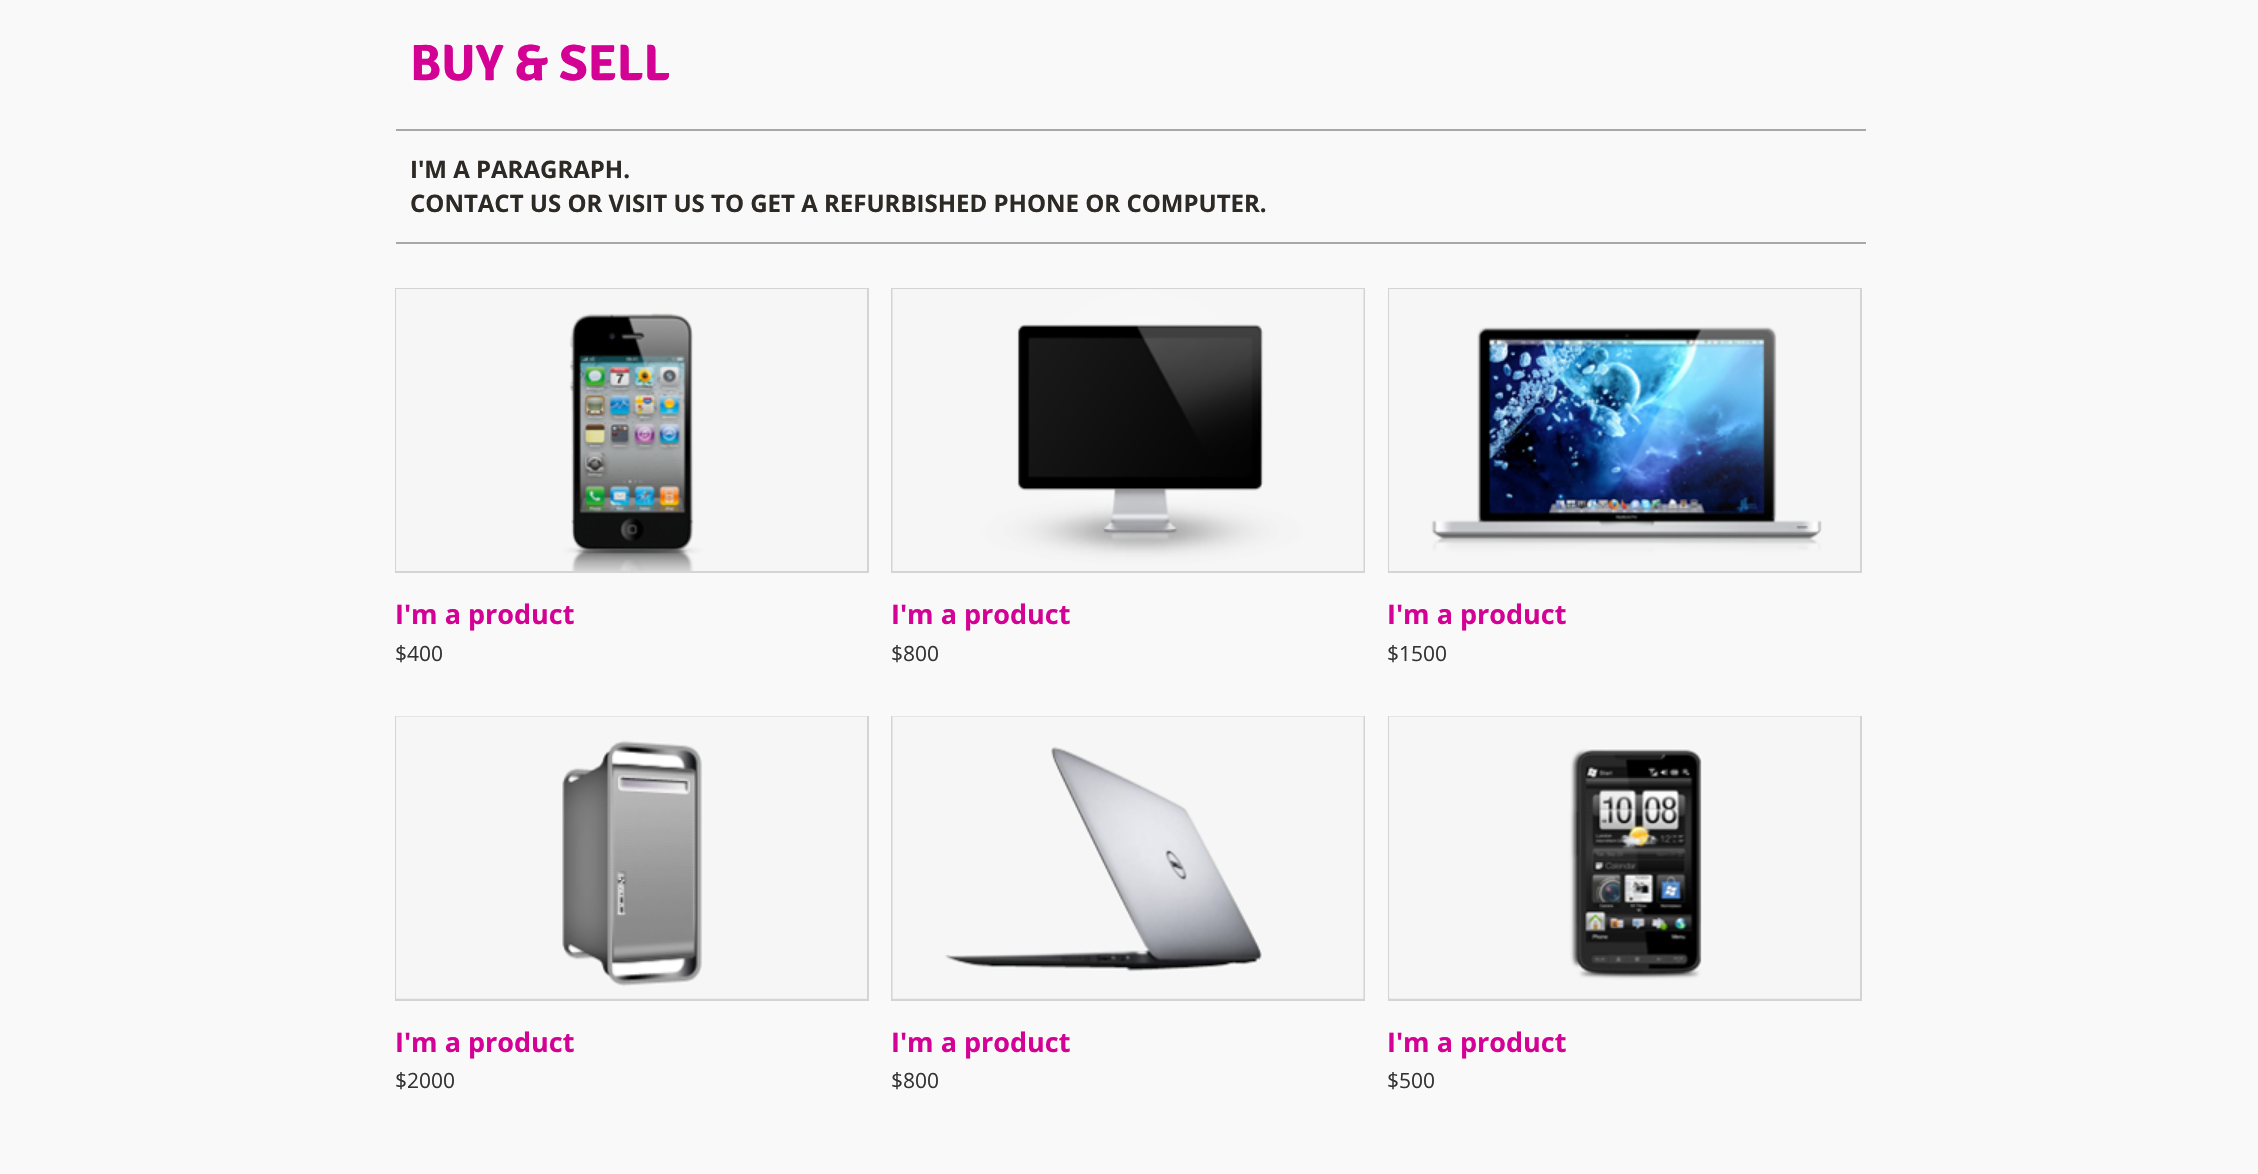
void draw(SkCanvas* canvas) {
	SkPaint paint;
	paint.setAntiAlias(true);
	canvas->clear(0xfff9f9f9);
	SkFont f1(fontMgr->matchFamilyStyle("Signika", SkFontStyle::Bold()), 51);
	f1.setSubpixel(true);
	paint.setColor(0xffd30294);
	canvas->drawString("BUY & SELL", 410, 80, f1, paint);
	paint.setColor(0xffa8a8a8);
	canvas->drawRect(SkRect::MakeXYWH(396, 129, 1470, 2), paint);
	SkFont f2(fontMgr->matchFamilyStyle("Open Sans", SkFontStyle::Bold()), 24);
	f2.setSubpixel(true);
	paint.setColor(0xff2d2924);
	canvas->drawString("I'M A PARAGRAPH.", 410, 178, f2, paint);
	canvas->drawString("CONTACT US OR VISIT US TO GET A REFURBISHED PHONE OR COMPUTER.", 410, 212, f2, paint);
	paint.setColor(0xffa8a8a8);
	canvas->drawRect(SkRect::MakeXYWH(396, 242, 1470, 2), paint);
	paint.setStroke(true);
	paint.setStrokeWidth(2);
	paint.setColor(0xffd4d4d4);
	canvas->drawRect(SkRect::MakeXYWH(396, 289, 472, 283), paint);
	canvas->drawImageRect(SkImages::DeferredFromEncodedData(SkData::MakeFromFileName("img1.png")), SkRect::MakeXYWH(396, 289, 471, 282), SkSamplingOptions());
	SkFont f3(fontMgr->matchFamilyStyle("Open Sans", SkFontStyle::Bold()), 27);
	f3.setSubpixel(true);
	paint.setStroke(false);
	paint.setColor(0xffd30294);
	canvas->drawString("I'm a product", 395, 624, f3, paint);
	SkFont f4(fontMgr->matchFamilyStyle("Open Sans", SkFontStyle::Normal()), 21);
	f4.setSubpixel(true);
	paint.setColor(0xff333333);
	canvas->drawString("$400", 395, 661, f4, paint);
	paint.setStroke(true);
	paint.setColor(0xffd4d4d4);
	canvas->drawRect(SkRect::MakeXYWH(892, 289, 472, 283), paint);
	canvas->drawImageRect(SkImages::DeferredFromEncodedData(SkData::MakeFromFileName("img2.png")), SkRect::MakeXYWH(892, 289, 472, 282), SkSamplingOptions());
	paint.setStroke(false);
	paint.setColor(0xffd30294);
	canvas->drawString("I'm a product", 891, 624, f3, paint);
	paint.setColor(0xff333333);
	canvas->drawString("$800", 891, 661, f4, paint);
	paint.setStroke(true);
	paint.setColor(0xffd4d4d4);
	canvas->drawRect(SkRect::MakeXYWH(1389, 289, 472, 283), paint);
	canvas->drawImageRect(SkImages::DeferredFromEncodedData(SkData::MakeFromFileName("img3.png")), SkRect::MakeXYWH(1389, 289, 471, 282), SkSamplingOptions());
	paint.setStroke(false);
	paint.setColor(0xffd30294);
	canvas->drawString("I'm a product", 1387, 624, f3, paint);
	paint.setColor(0xff333333);
	canvas->drawString("$1500", 1387, 661, f4, paint);
	paint.setColor(0xffe5e5e5);
	canvas->drawRect(SkRect::MakeXYWH(397, 998, 470, 1), paint);
	paint.setStroke(true);
	paint.setColor(0xffd4d4d4);
	canvas->drawRect(SkRect::MakeXYWH(396, 717, 472, 283), paint);
	canvas->drawImageRect(SkImages::DeferredFromEncodedData(SkData::MakeFromFileName("img4.png")), SkRect::MakeXYWH(396, 716, 471, 283), SkSamplingOptions());
	paint.setStroke(false);
	paint.setColor(0xffd30294);
	canvas->drawString("I'm a product", 395, 1052, f3, paint);
	paint.setColor(0xff333333);
	canvas->drawString("$2000", 395, 1088, f4, paint);
	paint.setColor(0xffe5e5e5);
	canvas->drawRect(SkRect::MakeXYWH(893, 998, 470, 1), paint);
	paint.setStroke(true);
	paint.setColor(0xffd4d4d4);
	canvas->drawRect(SkRect::MakeXYWH(892, 717, 472, 283), paint);
	canvas->drawImageRect(SkImages::DeferredFromEncodedData(SkData::MakeFromFileName("img5.png")), SkRect::MakeXYWH(892, 716, 472, 283), SkSamplingOptions());
	paint.setStroke(false);
	paint.setColor(0xffd30294);
	canvas->drawString("I'm a product", 891, 1052, f3, paint);
	paint.setColor(0xff333333);
	canvas->drawString("$800", 891, 1088, f4, paint);
	paint.setColor(0xffe5e5e5);
	canvas->drawRect(SkRect::MakeXYWH(1390, 998, 470, 1), paint);
	paint.setStroke(true);
	paint.setColor(0xffd4d4d4);
	canvas->drawRect(SkRect::MakeXYWH(1389, 717, 472, 283), paint);
	canvas->drawImageRect(SkImages::DeferredFromEncodedData(SkData::MakeFromFileName("img6.png")), SkRect::MakeXYWH(1389, 716, 471, 283), SkSamplingOptions());
	paint.setStroke(false);
	paint.setColor(0xffd30294);
	canvas->drawString("I'm a product", 1387, 1052, f3, paint);
	paint.setColor(0xff333333);
	canvas->drawString("$500", 1387, 1088, f4, paint);
}
